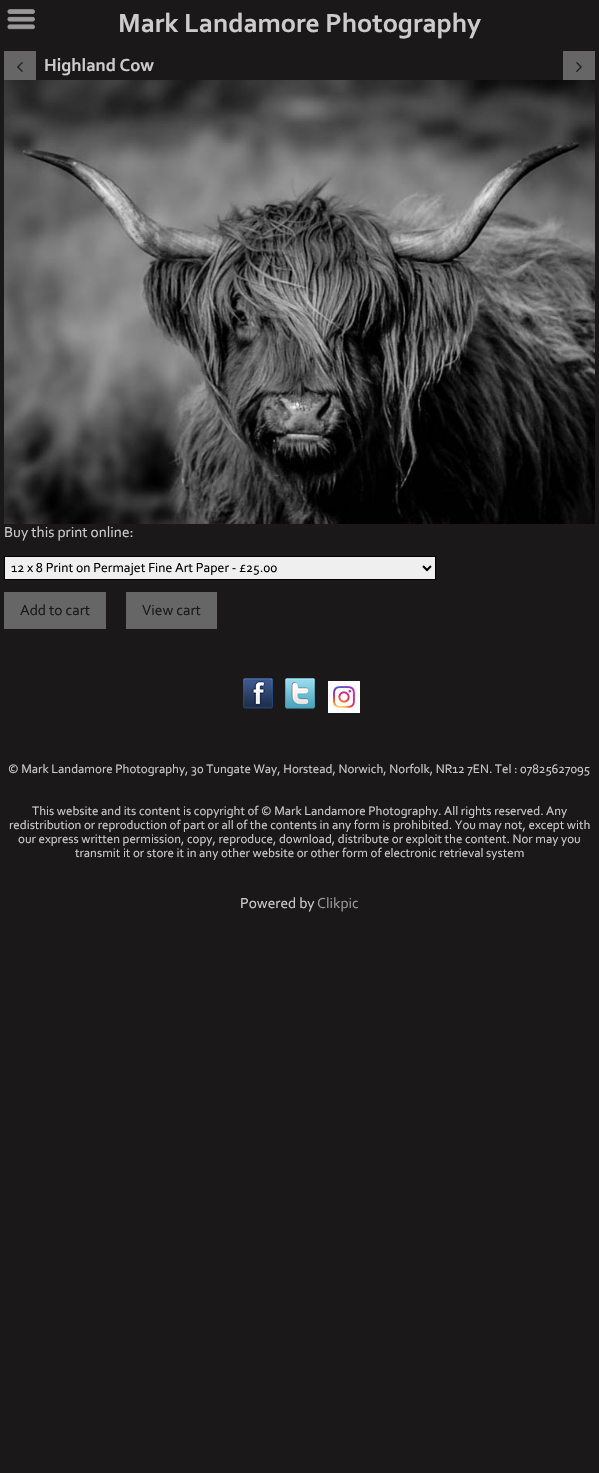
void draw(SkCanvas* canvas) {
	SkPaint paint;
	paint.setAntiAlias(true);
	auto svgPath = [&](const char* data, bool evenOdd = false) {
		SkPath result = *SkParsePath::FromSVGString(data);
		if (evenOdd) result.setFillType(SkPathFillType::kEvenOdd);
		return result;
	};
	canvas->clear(0xff1a1818);
	canvas->drawImageRect(SkImages::DeferredFromEncodedData(SkData::MakeFromFileName("img1.png")), SkRect::MakeXYWH(7, 9, 28, 21), SkSamplingOptions());
	SkFont f1(fontMgr->matchFamilyStyle("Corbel", SkFontStyle::Bold()), 27.4);
	f1.setSubpixel(true);
	paint.setColor(0xffcccccc);
	canvas->drawString("Mark Landamore Photography", 118, 32, f1, paint);
	paint.setColor(0xff666666);
	canvas->drawRect(SkRect::MakeXYWH(4, 51, 32, 29), paint);
	canvas->drawImageRect(SkImages::DeferredFromEncodedData(SkData::MakeFromFileName("img2.png")), SkRect::MakeXYWH(17, 62, 6, 10), SkSamplingOptions());
	canvas->drawRect(SkRect::MakeXYWH(563, 51, 32, 29), paint);
	canvas->drawImageRect(SkImages::DeferredFromEncodedData(SkData::MakeFromFileName("img3.png")), SkRect::MakeXYWH(576, 62, 6, 10), SkSamplingOptions());
	SkFont f2(fontMgr->matchFamilyStyle("Corbel", SkFontStyle::Bold()), 18.25);
	f2.setSubpixel(true);
	paint.setColor(0xffcccccc);
	canvas->drawString("Highland Cow", 44, 71, f2, paint);
	canvas->drawImageRect(SkImages::DeferredFromEncodedData(SkData::MakeFromFileName("img4.png")), SkRect::MakeXYWH(4, 80, 591, 444), SkSamplingOptions());
	SkFont f3(fontMgr->matchFamilyStyle("Corbel", SkFontStyle::Normal()), 15.25);
	f3.setSubpixel(true);
	canvas->drawString("Buy this print online:", 4, 537, f3, paint);
	paint.setColor(0xffefefef);
	canvas->drawRect(SkRect::MakeXYWH(4.5, 556.5, 431, 23), paint);
	paint.setStroke(true);
	paint.setStrokeWidth(1);
	paint.setColor(0xff000000);
	canvas->drawRect(SkRect::MakeXYWH(4.5, 556.5, 431, 23), paint);
	paint.setStrokeWidth(2);
	canvas->drawPath(svgPath("M423 566L427 570L431 566"), paint);
	SkFont f4(fontMgr->matchFamilyStyle("Corbel", SkFontStyle::Normal()), 13.7);
	f4.setSubpixel(true);
	paint.setStroke(false);
	canvas->drawString("12 x 8 Print on Permajet Fine Art Paper - £25.00", 11, 572, f4, paint);
	paint.setColor(0xff666666);
	canvas->drawRect(SkRect::MakeXYWH(4, 592, 102, 37), paint);
	paint.setColor(0xff1a1818);
	canvas->drawString("Add to cart", 20, 615, f3, paint);
	paint.setColor(0xff666666);
	canvas->drawRect(SkRect::MakeXYWH(126, 592, 91, 37), paint);
	paint.setColor(0xff1a1818);
	canvas->drawString("View cart", 142, 615, f3, paint);
	canvas->drawImageRect(SkImages::DeferredFromEncodedData(SkData::MakeFromFileName("img5.png")), SkRect::MakeXYWH(243, 678, 30, 31), SkSamplingOptions());
	canvas->drawImageRect(SkImages::DeferredFromEncodedData(SkData::MakeFromFileName("img6.png")), SkRect::MakeXYWH(285, 678, 30, 31), SkSamplingOptions());
	canvas->drawImageRect(SkImages::DeferredFromEncodedData(SkData::MakeFromFileName("img7.png")), SkRect::MakeXYWH(328, 681, 32, 32), SkSamplingOptions());
	SkFont f5(fontMgr->matchFamilyStyle("Corbel", SkFontStyle::Normal()), 12.9);
	f5.setSubpixel(true);
	paint.setColor(0xffcccccc);
	canvas->drawString("© Mark Landamore Photography, 30 Tungate Way, Horstead, Norwich, Norfolk, NR12 7EN. Tel : 07825627095", 8, 773, f5, paint);
	canvas->drawString("This website and its content is copyright of © Mark Landamore Photography. All rights reserved. Any", 32, 815, f5, paint);
	canvas->drawString("redistribution or reproduction of part or all of the contents in any form is prohibited. You may not, except with", 9, 829, f5, paint);
	canvas->drawString("our express written permission, copy, reproduce, download, distribute or exploit the content. Nor may you", 18, 843, f5, paint);
	canvas->drawString("transmit it or store it in any other website or other form of electronic retrieval system", 75, 857, f5, paint);
	canvas->drawString("Powered by", 240, 908, f3, paint);
	paint.setColor(0xff999999);
	canvas->drawString("Clikpic", 317, 908, f3, paint);
}
